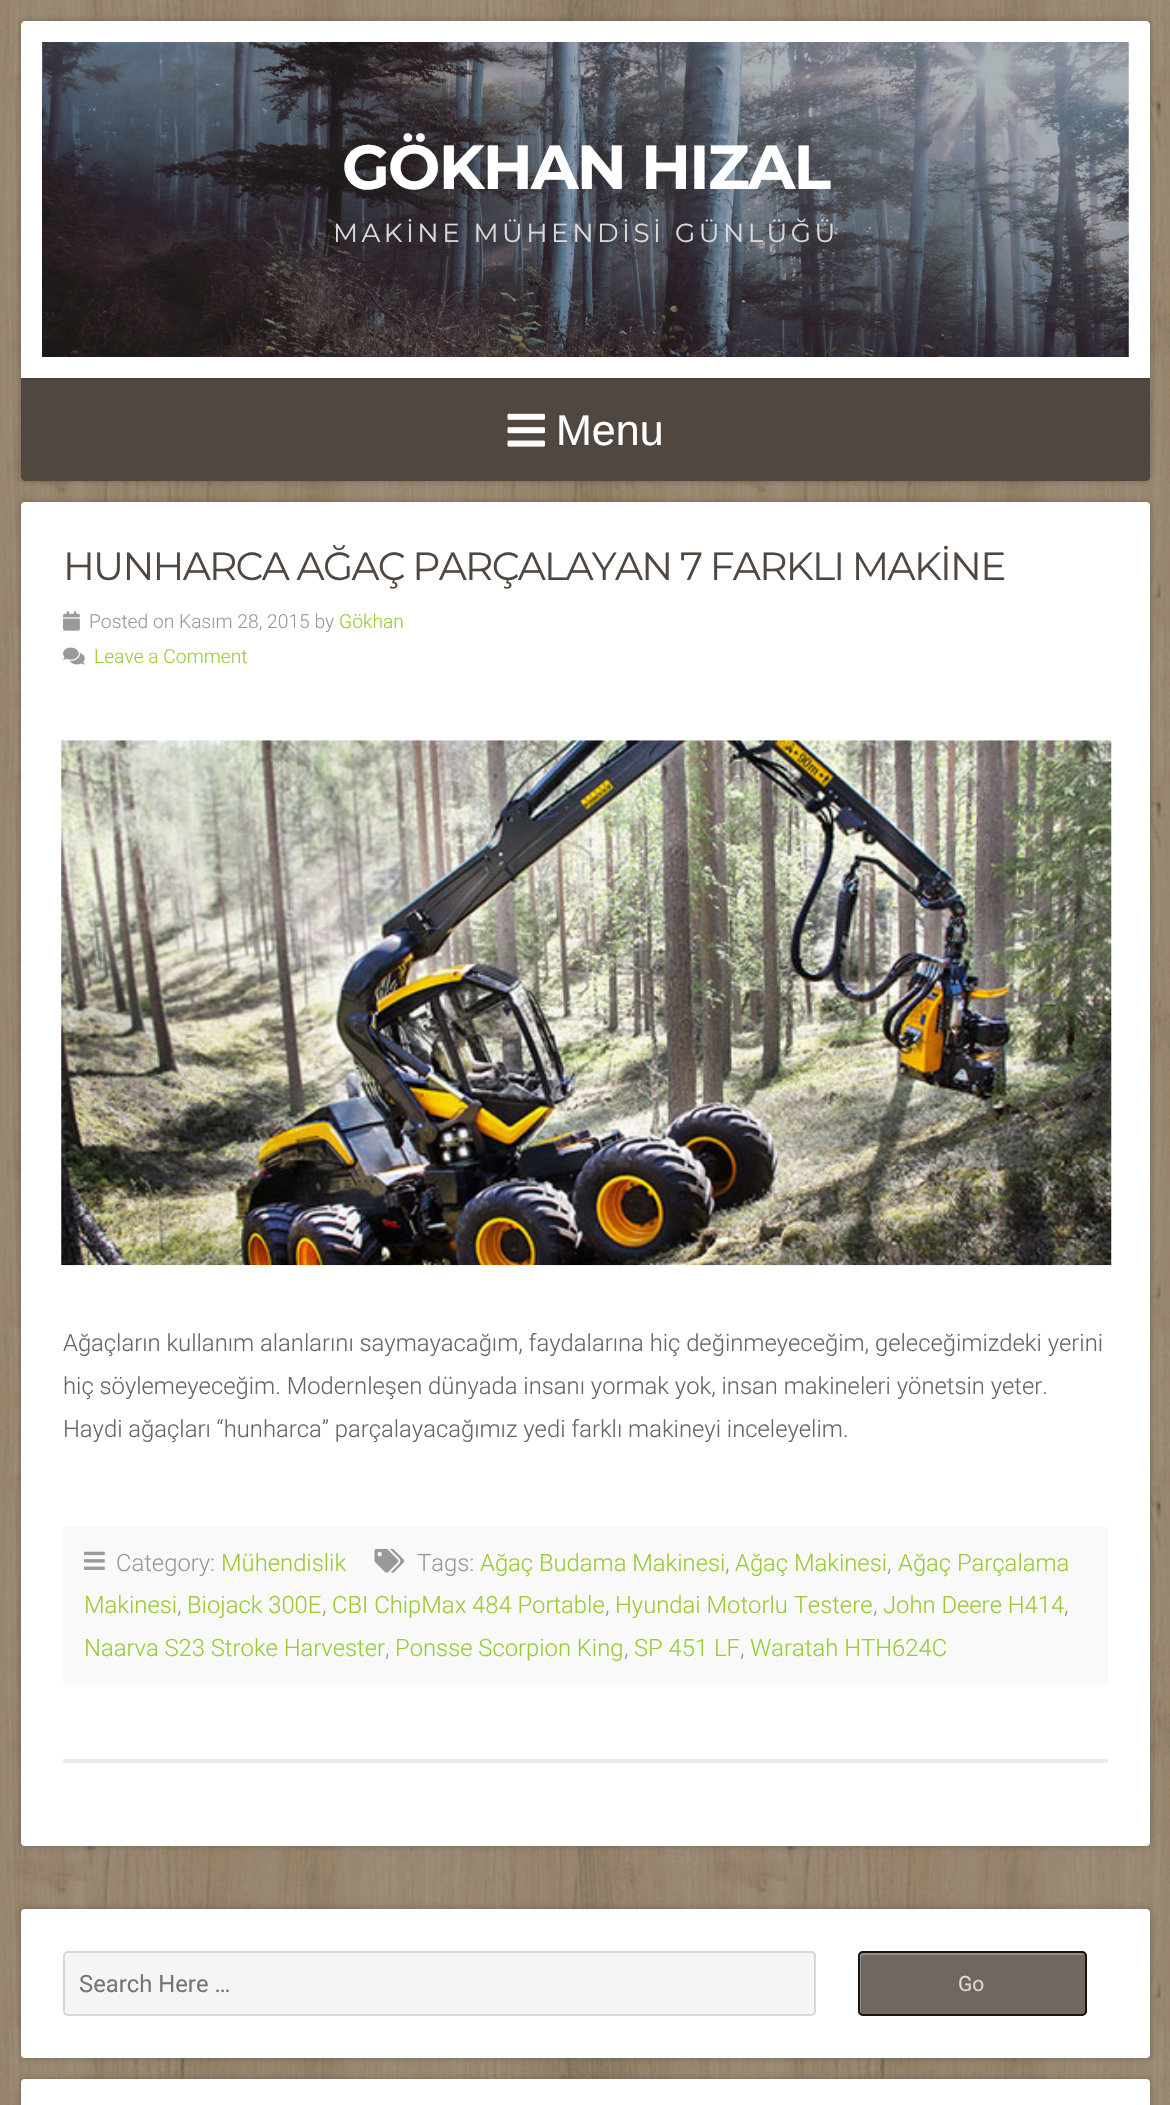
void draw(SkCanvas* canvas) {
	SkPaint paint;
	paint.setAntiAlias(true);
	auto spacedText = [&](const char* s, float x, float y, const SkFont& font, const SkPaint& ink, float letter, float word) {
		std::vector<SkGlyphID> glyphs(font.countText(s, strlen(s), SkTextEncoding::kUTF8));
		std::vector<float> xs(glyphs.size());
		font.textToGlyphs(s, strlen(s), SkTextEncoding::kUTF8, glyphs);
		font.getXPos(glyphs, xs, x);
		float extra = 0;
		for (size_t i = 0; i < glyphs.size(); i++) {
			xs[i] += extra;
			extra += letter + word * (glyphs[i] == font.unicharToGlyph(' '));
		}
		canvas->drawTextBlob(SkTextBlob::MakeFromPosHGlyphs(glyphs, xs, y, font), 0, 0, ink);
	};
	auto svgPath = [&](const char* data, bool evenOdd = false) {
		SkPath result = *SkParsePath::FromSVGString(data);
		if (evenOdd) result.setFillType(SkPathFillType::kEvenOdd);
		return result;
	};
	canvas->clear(0xffffffff);
	canvas->drawImageRect(SkImages::DeferredFromEncodedData(SkData::MakeFromFileName("img1.png")), SkRect::MakeXYWH(0, 0, 1170, 2105), SkSamplingOptions());
	paint.setColor(0x3d000000);
	paint.setMaskFilter(SkMaskFilter::MakeBlur(kNormal_SkBlurStyle, 3.5));
	canvas->drawRoundRect(SkRect::MakeXYWH(21, 21, 1129, 460), 4, 4, paint);
	paint.setMaskFilter(nullptr);
	paint.setColor(0xffffffff);
	canvas->drawPath(svgPath("M25 21H1146C1148 21 1150 23 1150 25V378H21V25C21 23 23 21 25 21Z"), paint);
	canvas->drawImageRect(SkImages::DeferredFromEncodedData(SkData::MakeFromFileName("img2.png")), SkRect::MakeXYWH(42, 42, 1087, 315), SkSamplingOptions());
	SkFont f1(fontMgr->matchFamilyStyle("Montserrat", SkFontStyle::Bold()), 62);
	f1.setSubpixel(true);
	spacedText("GÖKHAN HIZAL", 342, 189, f1, paint, -1.75, 0);
	SkFont f2(fontMgr->matchFamilyStyle("Montserrat", SkFontStyle::Normal()), 26.2);
	f2.setSubpixel(true);
	paint.setColor(0xffdbd9d7);
	spacedText("MAKİNE MÜHENDİSİ GÜNLÜĞÜ", 333, 242, f2, paint, 3.5, 0);
	paint.setColor(0xff504741);
	canvas->drawPath(svgPath("M21 378H1150V477C1150 479 1148 481 1146 481H25C23 481 21 479 21 477Z"), paint);
	paint.setColor(0xff48403b);
	canvas->drawRect(SkRect::MakeXYWH(21, 378, 1129, 2), paint);
	canvas->drawImageRect(SkImages::DeferredFromEncodedData(SkData::MakeFromFileName("img3.png")), SkRect::MakeXYWH(507, 413, 38, 34), SkSamplingOptions());
	SkFont f3(fontMgr->matchFamilyStyle("Liberation Sans", SkFontStyle::Normal()), 43);
	f3.setSubpixel(true);
	paint.setColor(0xffffffff);
	canvas->drawString("Menu", 556, 445, f3, paint);
	paint.setColor(0x3d000000);
	paint.setMaskFilter(SkMaskFilter::MakeBlur(kNormal_SkBlurStyle, 3.5));
	canvas->drawRoundRect(SkRect::MakeXYWH(21, 502, 1129, 1344), 4, 4, paint);
	paint.setMaskFilter(nullptr);
	paint.setColor(0xffffffff);
	canvas->drawRoundRect(SkRect::MakeXYWH(21, 502, 1129, 1344), 4, 4, paint);
	paint.setColor(0xffebebeb);
	canvas->drawRect(SkRect::MakeXYWH(63, 1759, 1045, 4), paint);
	SkFont f4(fontMgr->matchFamilyStyle("Montserrat", SkFontStyle::Normal()), 39.2);
	f4.setSubpixel(true);
	paint.setColor(0xff504741);
	spacedText("HUNHARCA AĞAÇ PARÇALAYAN 7 FARKLI MAKİNE", 63, 580, f4, paint, -1.75, 0);
	canvas->drawImageRect(SkImages::DeferredFromEncodedData(SkData::MakeFromFileName("img4.png")), SkRect::MakeXYWH(63, 611, 17, 20), SkSamplingOptions());
	SkFont f5(fontMgr->matchFamilyStyle("Roboto", SkFontStyle(300, SkFontStyle::kNormal_Width, SkFontStyle::kUpright_Slant)), 19.25);
	f5.setSubpixel(true);
	paint.setColor(0xff999999);
	canvas->drawString("Posted on Kasım 28, 2015 by", 89, 628, f5, paint);
	paint.setColor(0xff99cc33);
	canvas->drawString("Gökhan", 339, 628, f5, paint);
	canvas->drawImageRect(SkImages::DeferredFromEncodedData(SkData::MakeFromFileName("img5.png")), SkRect::MakeXYWH(63, 647, 22, 18), SkSamplingOptions());
	canvas->drawString("Leave a Comment", 94, 663, f5, paint);
	canvas->drawImageRect(SkImages::DeferredFromEncodedData(SkData::MakeFromFileName("img6.png")), SkRect::MakeXYWH(61, 740, 1051, 526), SkSamplingOptions());
	SkFont f6(fontMgr->matchFamilyStyle("Roboto", SkFontStyle(300, SkFontStyle::kNormal_Width, SkFontStyle::kUpright_Slant)), 23.8);
	f6.setSubpixel(true);
	paint.setColor(0xff666666);
	canvas->drawString("Ağaçların kullanım alanlarını saymayacağım, faydalarına hiç değinmeyeceğim, geleceğimizdeki yerini", 63, 1351, f6, paint);
	canvas->drawString("hiç söylemeyeceğim. Modernleşen dünyada insanı yormak yok, insan makineleri yönetsin yeter.", 63, 1394, f6, paint);
	canvas->drawString("Haydi ağaçları “hunharca” parçalayacağımız yedi farklı makineyi inceleyelim.", 63, 1437, f6, paint);
	paint.setColor(0xfff9f9f9);
	canvas->drawRoundRect(SkRect::MakeXYWH(63, 1526, 1045, 158), 4, 4, paint);
	canvas->drawImageRect(SkImages::DeferredFromEncodedData(SkData::MakeFromFileName("img7.png")), SkRect::MakeXYWH(84, 1551, 21, 19), SkSamplingOptions());
	paint.setColor(0xff999999);
	canvas->drawString("Category:", 116, 1571, f6, paint);
	paint.setColor(0xff99cc33);
	canvas->drawString("Mühendislik", 221, 1571, f6, paint);
	canvas->drawImageRect(SkImages::DeferredFromEncodedData(SkData::MakeFromFileName("img8.png")), SkRect::MakeXYWH(374, 1548, 31, 25), SkSamplingOptions());
	paint.setColor(0xff999999);
	canvas->drawString("Tags:", 417, 1571, f6, paint);
	paint.setColor(0xff99cc33);
	canvas->drawString("Ağaç Budama Makinesi", 480, 1571, f6, paint);
	paint.setColor(0xff999999);
	canvas->drawString(",", 725, 1571, f6, paint);
	paint.setColor(0xff99cc33);
	canvas->drawString("Ağaç Makinesi", 735, 1571, f6, paint);
	paint.setColor(0xff999999);
	canvas->drawString(",", 887, 1571, f6, paint);
	paint.setColor(0xff99cc33);
	canvas->drawString("Ağaç Parçalama", 898, 1571, f6, paint);
	canvas->drawString("Makinesi", 84, 1613, f6, paint);
	paint.setColor(0xff999999);
	canvas->drawString(",", 177, 1613, f6, paint);
	paint.setColor(0xff99cc33);
	canvas->drawString("Biojack 300E", 187, 1613, f6, paint);
	paint.setColor(0xff999999);
	canvas->drawString(",", 322, 1613, f6, paint);
	paint.setColor(0xff99cc33);
	canvas->drawString("CBI ChipMax 484 Portable", 332, 1613, f6, paint);
	paint.setColor(0xff999999);
	canvas->drawString(",", 605, 1613, f6, paint);
	paint.setColor(0xff99cc33);
	canvas->drawString("Hyundai Motorlu Testere", 615, 1613, f6, paint);
	paint.setColor(0xff999999);
	canvas->drawString(",", 873, 1613, f6, paint);
	paint.setColor(0xff99cc33);
	canvas->drawString("John Deere H414", 883, 1613, f6, paint);
	paint.setColor(0xff999999);
	canvas->drawString(",", 1064, 1613, f6, paint);
	paint.setColor(0xff99cc33);
	canvas->drawString("Naarva S23 Stroke Harvester", 84, 1656, f6, paint);
	paint.setColor(0xff999999);
	canvas->drawString(",", 385, 1656, f6, paint);
	paint.setColor(0xff99cc33);
	canvas->drawString("Ponsse Scorpion King", 395, 1656, f6, paint);
	paint.setColor(0xff999999);
	canvas->drawString(",", 624, 1656, f6, paint);
	paint.setColor(0xff99cc33);
	canvas->drawString("SP 451 LF", 634, 1656, f6, paint);
	paint.setColor(0xff999999);
	canvas->drawString(",", 740, 1656, f6, paint);
	paint.setColor(0xff99cc33);
	canvas->drawString("Waratah HTH624C", 750, 1656, f6, paint);
	paint.setColor(0x3d000000);
	paint.setMaskFilter(SkMaskFilter::MakeBlur(kNormal_SkBlurStyle, 3.5));
	canvas->drawRoundRect(SkRect::MakeXYWH(21, 1909, 1129, 149), 4, 4, paint);
	paint.setMaskFilter(nullptr);
	paint.setColor(0xffffffff);
	canvas->drawRoundRect(SkRect::MakeXYWH(21, 1909, 1129, 149), 4, 4, paint);
	paint.setColor(0xfff5f5f5);
	canvas->drawRoundRect(SkRect::MakeXYWH(63, 1951, 753, 65), 5, 5, paint);
	paint.setStroke(true);
	paint.setStrokeWidth(2);
	paint.setColor(0x1f000000);
	canvas->drawRoundRect(SkRect::MakeXYWH(64, 1952, 751, 63), 4, 4, paint);
	SkFont f7(fontMgr->matchFamilyStyle("Roboto", SkFontStyle::Normal()), 23.8);
	f7.setSubpixel(true);
	paint.setStroke(false);
	paint.setColor(0xff757575);
	canvas->drawString("Search Here …", 79, 1992, f7, paint);
	paint.setColor(0xff706760);
	canvas->drawRoundRect(SkRect::MakeXYWH(858, 1951, 229, 65), 5, 5, paint);
	paint.setColor(0xff928b86);
	canvas->drawPath(svgPath("M864 1955H1085C1084 1954 1083 1953 1081 1953H863C861 1953 859 1955 859 1957V2010C859 2012 860 2013 861 2014V2012V1958C861 1956 863 1955 864 1955Z"), paint);
	paint.setStroke(true);
	paint.setColor(0xcc000000);
	canvas->drawRoundRect(SkRect::MakeXYWH(859, 1952, 227, 63), 4, 4, paint);
	SkFont f8(fontMgr->matchFamilyStyle("Roboto", SkFontStyle::Normal()), 21);
	f8.setSubpixel(true);
	paint.setStroke(false);
	paint.setColor(0xffdbd9d7);
	canvas->drawString("Go", 958, 1991, f8, paint);
	paint.setColor(0x3d000000);
	paint.setMaskFilter(SkMaskFilter::MakeBlur(kNormal_SkBlurStyle, 3.5));
	canvas->drawRoundRect(SkRect::MakeXYWH(21, 2079, 1129, 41), 4, 4, paint);
	paint.setMaskFilter(nullptr);
	paint.setColor(0xffffffff);
	canvas->drawRoundRect(SkRect::MakeXYWH(21, 2079, 1129, 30), 4, 4, paint);
}
